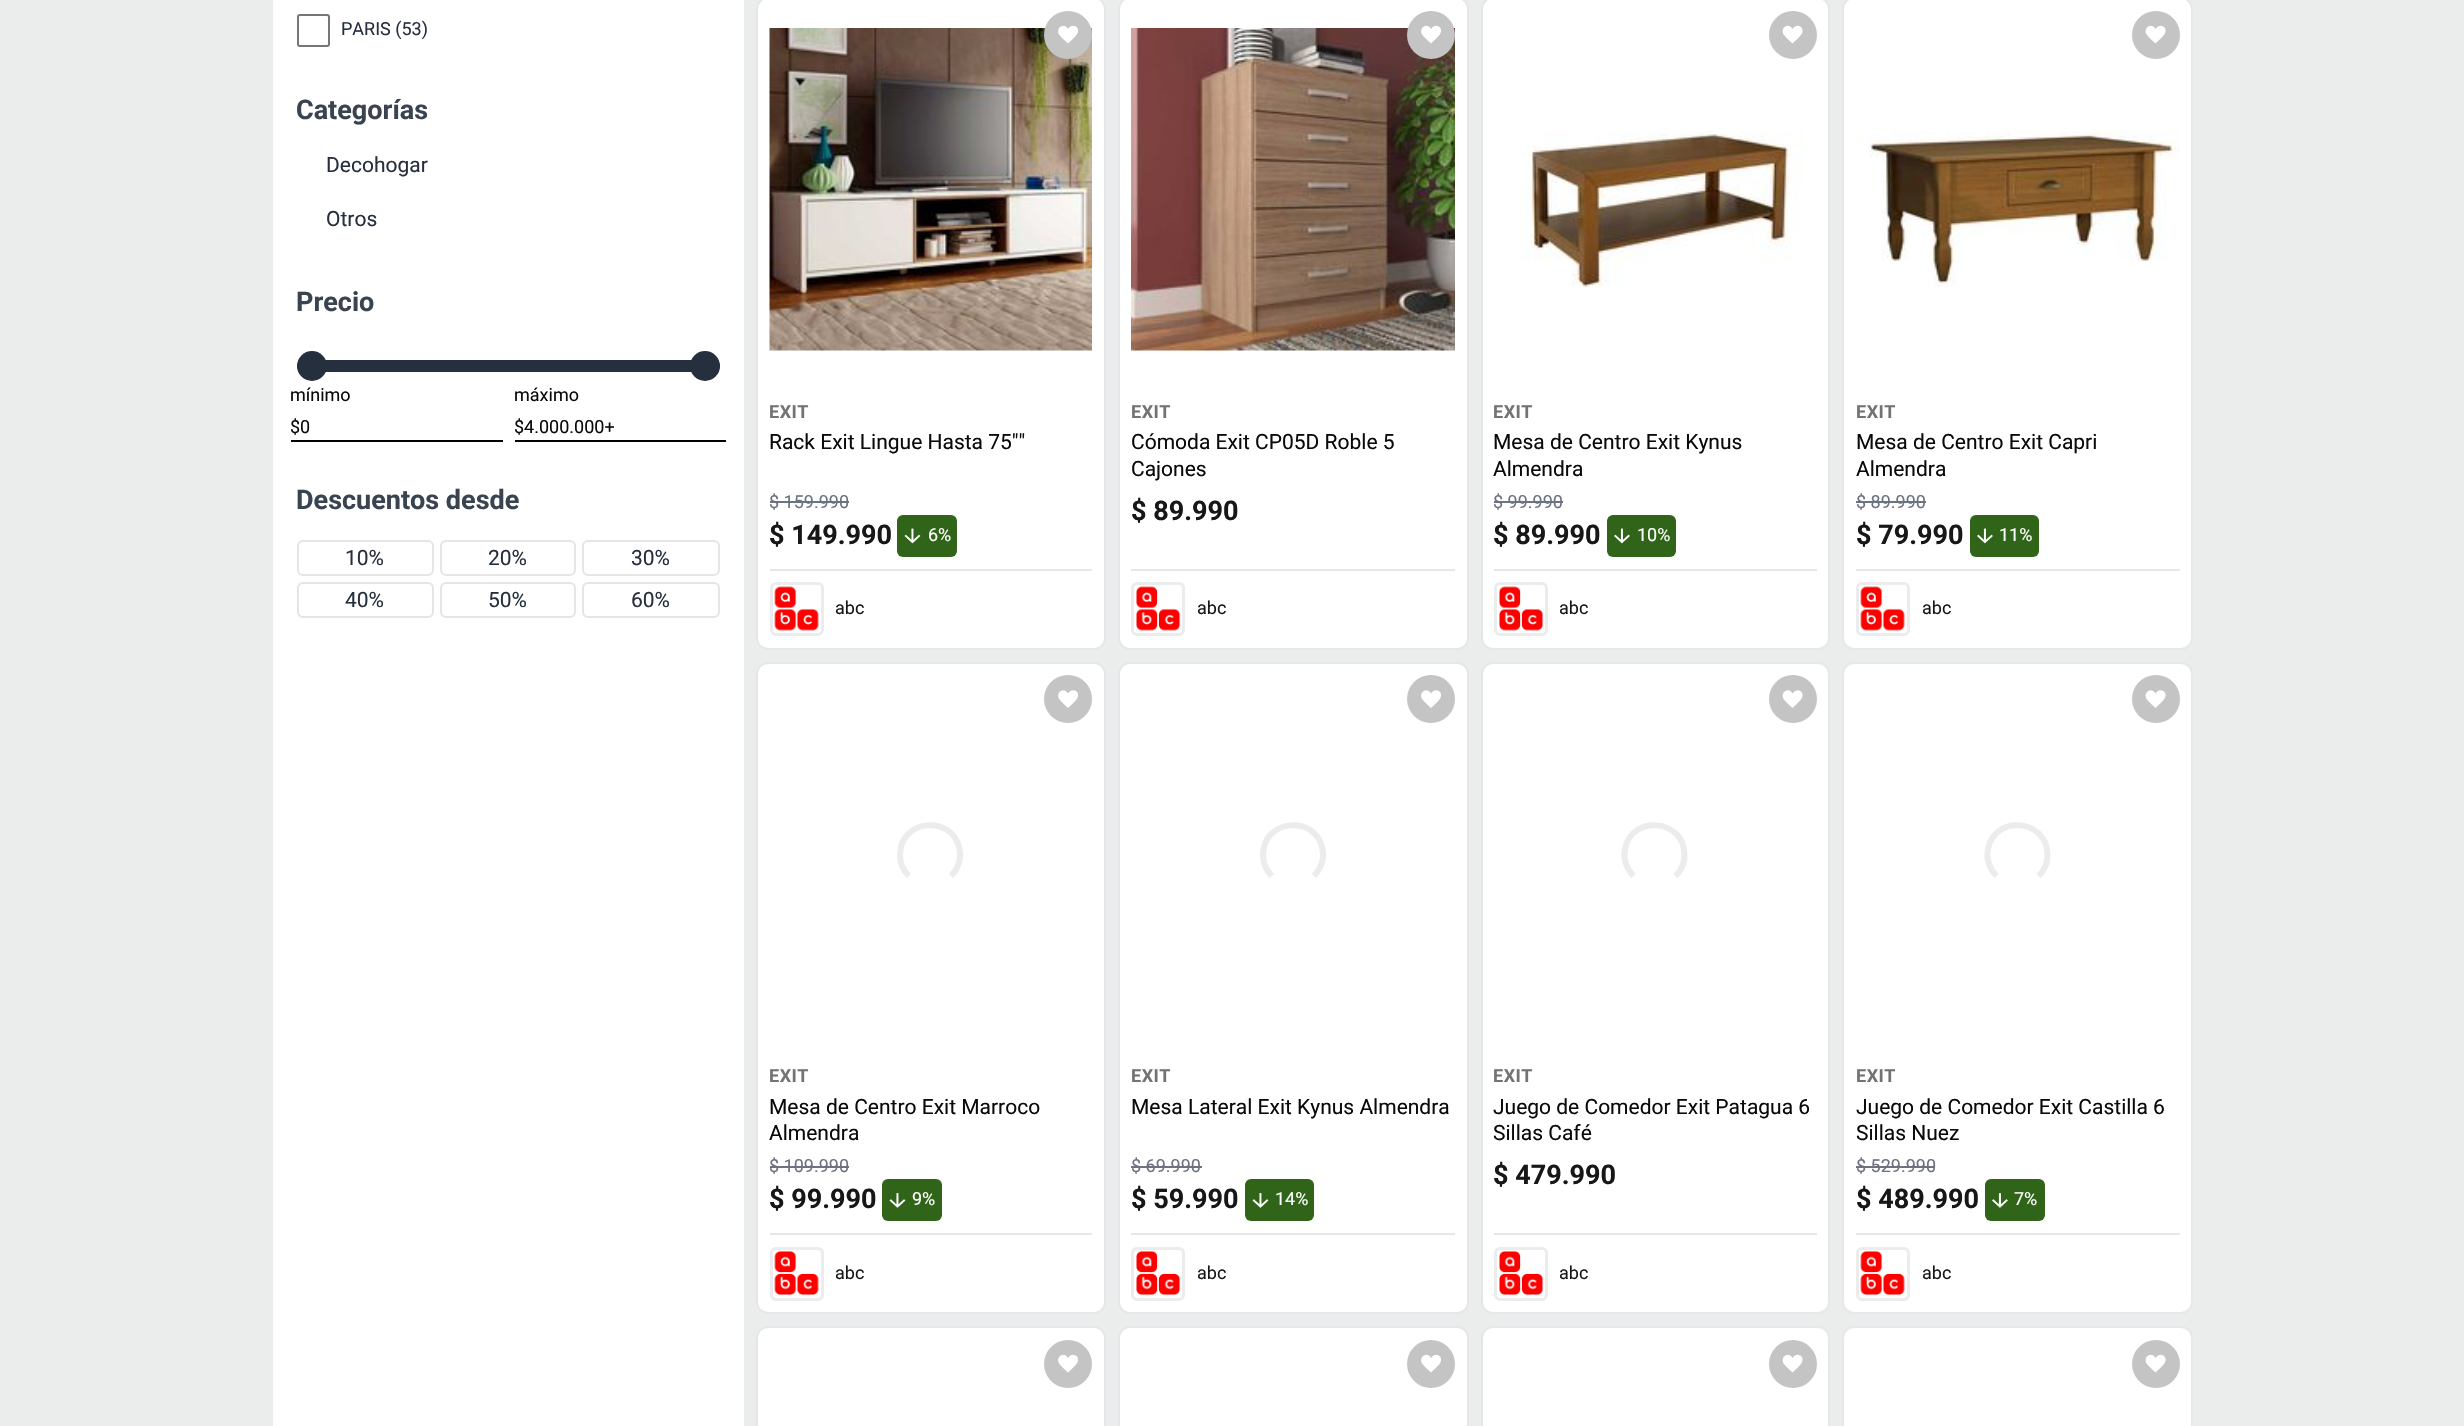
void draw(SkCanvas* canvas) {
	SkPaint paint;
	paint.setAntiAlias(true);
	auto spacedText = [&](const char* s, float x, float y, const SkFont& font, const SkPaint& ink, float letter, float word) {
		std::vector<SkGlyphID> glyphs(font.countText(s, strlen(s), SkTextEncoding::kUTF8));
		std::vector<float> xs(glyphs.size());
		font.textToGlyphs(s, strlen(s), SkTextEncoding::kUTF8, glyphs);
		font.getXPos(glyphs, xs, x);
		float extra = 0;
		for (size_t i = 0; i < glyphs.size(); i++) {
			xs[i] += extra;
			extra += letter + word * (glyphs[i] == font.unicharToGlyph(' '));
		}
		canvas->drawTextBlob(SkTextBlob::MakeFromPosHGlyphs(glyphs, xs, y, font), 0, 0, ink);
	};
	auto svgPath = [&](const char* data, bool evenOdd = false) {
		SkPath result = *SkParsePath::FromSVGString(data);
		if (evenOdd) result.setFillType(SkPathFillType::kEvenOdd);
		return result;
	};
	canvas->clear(0xffebeded);
	paint.setColor(0xffffffff);
	canvas->drawRect(SkRect::MakeXYWH(273, 0, 471, 1426), paint);
	paint.setStroke(true);
	paint.setStrokeWidth(2);
	paint.setColor(0xff767676);
	canvas->drawRoundRect(SkRect::MakeXYWH(298, 15, 31, 31), 2, 2, paint);
	SkFont f1(fontMgr->matchFamilyStyle("Roboto", SkFontStyle::Normal()), 18);
	f1.setSubpixel(true);
	paint.setStroke(false);
	paint.setColor(0xff252f3d);
	canvas->drawString("PARIS (53)", 341, 35, f1, paint);
	SkFont f2(fontMgr->matchFamilyStyle("Roboto", SkFontStyle::Bold()), 27);
	f2.setSubpixel(true);
	paint.setColor(0xff3a4350);
	canvas->drawString("Categorías", 296, 119, f2, paint);
	SkFont f3(fontMgr->matchFamilyStyle("Roboto", SkFontStyle::Normal()), 21);
	f3.setSubpixel(true);
	paint.setColor(0xff252f3d);
	canvas->drawString("Decohogar", 326, 172, f3, paint);
	canvas->drawString("Otros", 326, 226, f3, paint);
	paint.setColor(0xff3a4350);
	canvas->drawString("Precio", 296, 311, f2, paint);
	paint.setColor(0xff252f3d);
	canvas->drawRoundRect(SkRect::MakeXYWH(297, 360, 423, 12), 6, 6, paint);
	canvas->drawCircle(312, 366, 15, paint);
	canvas->drawCircle(705, 366, 15, paint);
	paint.setColor(0xff0a0a0a);
	canvas->drawString("mínimo", 290, 401, f1, paint);
	paint.setColor(0xff000000);
	canvas->drawRect(SkRect::MakeXYWH(291, 440, 212, 2), paint);
	paint.setColor(0xff0a0a0a);
	canvas->drawString("$0", 290, 433, f1, paint);
	canvas->drawString("máximo", 514, 401, f1, paint);
	paint.setColor(0xff000000);
	canvas->drawRect(SkRect::MakeXYWH(515, 440, 211, 2), paint);
	paint.setColor(0xff0a0a0a);
	canvas->drawString("$4.000.000+", 514, 433, f1, paint);
	paint.setColor(0xff3a4350);
	canvas->drawString("Descuentos desde", 296, 509, f2, paint);
	paint.setStroke(true);
	paint.setColor(0xffe5e5e5);
	canvas->drawRoundRect(SkRect::MakeXYWH(298, 541, 135, 34), 5, 5, paint);
	paint.setStroke(false);
	paint.setColor(0xff252f3d);
	canvas->drawString("10%", 345, 565, f3, paint);
	paint.setStroke(true);
	paint.setColor(0xffe5e5e5);
	canvas->drawRoundRect(SkRect::MakeXYWH(441, 541, 134, 34), 5, 5, paint);
	paint.setStroke(false);
	paint.setColor(0xff252f3d);
	canvas->drawString("20%", 488, 565, f3, paint);
	paint.setStroke(true);
	paint.setColor(0xffe5e5e5);
	canvas->drawRoundRect(SkRect::MakeXYWH(583, 541, 136, 34), 5, 5, paint);
	paint.setStroke(false);
	paint.setColor(0xff252f3d);
	canvas->drawString("30%", 631, 565, f3, paint);
	paint.setStroke(true);
	paint.setColor(0xffe5e5e5);
	canvas->drawRoundRect(SkRect::MakeXYWH(298, 583, 135, 34), 5, 5, paint);
	paint.setStroke(false);
	paint.setColor(0xff252f3d);
	canvas->drawString("40%", 345, 607, f3, paint);
	paint.setStroke(true);
	paint.setColor(0xffe5e5e5);
	canvas->drawRoundRect(SkRect::MakeXYWH(441, 583, 134, 34), 5, 5, paint);
	paint.setStroke(false);
	paint.setColor(0xff252f3d);
	canvas->drawString("50%", 488, 607, f3, paint);
	paint.setStroke(true);
	paint.setColor(0xffe5e5e5);
	canvas->drawRoundRect(SkRect::MakeXYWH(583, 583, 136, 34), 5, 5, paint);
	paint.setStroke(false);
	paint.setColor(0xff252f3d);
	canvas->drawString("60%", 631, 607, f3, paint);
	paint.setColor(0xffffffff);
	canvas->drawRoundRect(SkRect::MakeXYWH(757, -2, 348, 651), 11, 11, paint);
	paint.setStroke(true);
	paint.setColor(0xffe5e7eb);
	canvas->drawRoundRect(SkRect::MakeXYWH(757, -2, 348, 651), 11, 11, paint);
	canvas->drawImageRect(SkImages::DeferredFromEncodedData(SkData::MakeFromFileName("img2.png")), SkRect::MakeXYWH(769, 28, 323, 323), SkSamplingOptions());
	paint.setStroke(false);
	paint.setColor(0xffc4c4c4);
	canvas->drawCircle(1068, 35, 24, paint);
	canvas->drawImageRect(SkImages::DeferredFromEncodedData(SkData::MakeFromFileName("img1.png")), SkRect::MakeXYWH(1058, 25, 20, 19), SkSamplingOptions());
	SkFont f4(fontMgr->matchFamilyStyle("Roboto", SkFontStyle::Bold()), 18);
	f4.setSubpixel(true);
	paint.setColor(0xff737373);
	spacedText("EXIT", 769, 418, f4, paint, 0.5, 0);
	paint.setColor(0xff0a0a0a);
	canvas->drawString("Rack Exit Lingue Hasta 75\"\"", 769, 449, f3, paint);
	paint.setColor(0xff6b7280);
	canvas->drawString("$ 159.990", 769, 508, f1, paint);
	canvas->drawRect(SkRect::MakeXYWH(770, 501, 79, 2), paint);
	paint.setColor(0xff171717);
	canvas->drawString("$ 149.990", 769, 544, f2, paint);
	paint.setColor(0xff306419);
	canvas->drawRoundRect(SkRect::MakeXYWH(897, 515, 60, 42), 6, 6, paint);
	canvas->drawImageRect(SkImages::DeferredFromEncodedData(SkData::MakeFromFileName("img3.png")), SkRect::MakeXYWH(904, 528, 17, 16), SkSamplingOptions());
	paint.setColor(0xffffffff);
	canvas->drawString("6%", 928, 541, f1, paint);
	paint.setColor(0xffe5e7eb);
	canvas->drawRect(SkRect::MakeXYWH(770, 569, 322, 2), paint);
	paint.setStroke(true);
	paint.setStrokeWidth(3);
	paint.setColor(0xffebeded);
	canvas->drawRoundRect(SkRect::MakeXYWH(771.5, 583.5, 51, 51), 4.5, 4.5, paint);
	canvas->drawImageRect(SkImages::DeferredFromEncodedData(SkData::MakeFromFileName("img4.png")), SkRect::MakeXYWH(774, 586, 45, 45), SkSamplingOptions());
	paint.setStroke(false);
	paint.setColor(0xff171717);
	canvas->drawString("abc", 835, 614, f1, paint);
	paint.setColor(0xffffffff);
	canvas->drawRoundRect(SkRect::MakeXYWH(1119, -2, 349, 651), 11, 11, paint);
	paint.setStroke(true);
	paint.setStrokeWidth(2);
	paint.setColor(0xffe5e7eb);
	canvas->drawRoundRect(SkRect::MakeXYWH(1119, -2, 349, 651), 11, 11, paint);
	canvas->drawImageRect(SkImages::DeferredFromEncodedData(SkData::MakeFromFileName("img5.png")), SkRect::MakeXYWH(1131, 28, 324, 323), SkSamplingOptions());
	paint.setStroke(false);
	paint.setColor(0xffc4c4c4);
	canvas->drawCircle(1431, 35, 24, paint);
	canvas->drawImageRect(SkImages::DeferredFromEncodedData(SkData::MakeFromFileName("img1.png")), SkRect::MakeXYWH(1421, 25, 20, 19), SkSamplingOptions());
	paint.setColor(0xff737373);
	spacedText("EXIT", 1131, 418, f4, paint, 0.5, 0);
	paint.setColor(0xff0a0a0a);
	canvas->drawString("Cómoda Exit CP05D Roble 5", 1131, 449, f3, paint);
	canvas->drawString("Cajones", 1131, 476, f3, paint);
	paint.setColor(0xff171717);
	canvas->drawString("$ 89.990", 1131, 520, f2, paint);
	paint.setColor(0xffe5e7eb);
	canvas->drawRect(SkRect::MakeXYWH(1131, 569, 324, 2), paint);
	paint.setStroke(true);
	paint.setStrokeWidth(3);
	paint.setColor(0xffebeded);
	canvas->drawRoundRect(SkRect::MakeXYWH(1132.5, 583.5, 51, 51), 4.5, 4.5, paint);
	canvas->drawImageRect(SkImages::DeferredFromEncodedData(SkData::MakeFromFileName("img6.png")), SkRect::MakeXYWH(1136, 586, 45, 45), SkSamplingOptions());
	paint.setStroke(false);
	paint.setColor(0xff171717);
	canvas->drawString("abc", 1197, 614, f1, paint);
	paint.setColor(0xffffffff);
	canvas->drawRoundRect(SkRect::MakeXYWH(1482, -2, 347, 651), 11, 11, paint);
	paint.setStroke(true);
	paint.setStrokeWidth(2);
	paint.setColor(0xffe5e7eb);
	canvas->drawRoundRect(SkRect::MakeXYWH(1482, -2, 347, 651), 11, 11, paint);
	paint.setStroke(false);
	paint.setColor(0xffc4c4c4);
	canvas->drawCircle(1793, 35, 24, paint);
	canvas->drawImageRect(SkImages::DeferredFromEncodedData(SkData::MakeFromFileName("img7.png")), SkRect::MakeXYWH(1782, 25, 21, 19), SkSamplingOptions());
	canvas->drawImageRect(SkImages::DeferredFromEncodedData(SkData::MakeFromFileName("img8.png")), SkRect::MakeXYWH(1520, 131, 284, 157), SkSamplingOptions());
	paint.setColor(0xff737373);
	spacedText("EXIT", 1493, 418, f4, paint, 0.5, 0);
	paint.setColor(0xff0a0a0a);
	canvas->drawString("Mesa de Centro Exit Kynus", 1493, 449, f3, paint);
	canvas->drawString("Almendra", 1493, 476, f3, paint);
	paint.setColor(0xff6b7280);
	canvas->drawString("$ 99.990", 1493, 508, f1, paint);
	canvas->drawRect(SkRect::MakeXYWH(1494, 501, 69, 2), paint);
	paint.setColor(0xff171717);
	canvas->drawString("$ 89.990", 1493, 544, f2, paint);
	paint.setColor(0xff306419);
	canvas->drawRoundRect(SkRect::MakeXYWH(1607, 515, 69, 42), 6, 6, paint);
	canvas->drawImageRect(SkImages::DeferredFromEncodedData(SkData::MakeFromFileName("img9.png")), SkRect::MakeXYWH(1614, 528, 16, 16), SkSamplingOptions());
	paint.setColor(0xffffffff);
	canvas->drawString("10%", 1637, 541, f1, paint);
	paint.setColor(0xffe5e7eb);
	canvas->drawRect(SkRect::MakeXYWH(1494, 569, 323, 2), paint);
	paint.setStroke(true);
	paint.setStrokeWidth(3);
	paint.setColor(0xffebeded);
	canvas->drawRoundRect(SkRect::MakeXYWH(1495.5, 583.5, 51, 51), 4.5, 4.5, paint);
	canvas->drawImageRect(SkImages::DeferredFromEncodedData(SkData::MakeFromFileName("img10.png")), SkRect::MakeXYWH(1499, 586, 45, 45), SkSamplingOptions());
	paint.setStroke(false);
	paint.setColor(0xff171717);
	canvas->drawString("abc", 1559, 614, f1, paint);
	paint.setColor(0xffffffff);
	canvas->drawRoundRect(SkRect::MakeXYWH(1843, -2, 349, 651), 11, 11, paint);
	paint.setStroke(true);
	paint.setStrokeWidth(2);
	paint.setColor(0xffe5e7eb);
	canvas->drawRoundRect(SkRect::MakeXYWH(1843, -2, 349, 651), 11, 11, paint);
	paint.setStroke(false);
	paint.setColor(0xffc4c4c4);
	canvas->drawCircle(2156, 35, 24, paint);
	canvas->drawImageRect(SkImages::DeferredFromEncodedData(SkData::MakeFromFileName("img7.png")), SkRect::MakeXYWH(2145, 25, 21, 19), SkSamplingOptions());
	canvas->drawImageRect(SkImages::DeferredFromEncodedData(SkData::MakeFromFileName("img11.png")), SkRect::MakeXYWH(1856, 130, 324, 157), SkSamplingOptions());
	paint.setColor(0xff737373);
	spacedText("EXIT", 1856, 418, f4, paint, 0.5, 0);
	paint.setColor(0xff0a0a0a);
	canvas->drawString("Mesa de Centro Exit Capri", 1856, 449, f3, paint);
	canvas->drawString("Almendra", 1856, 476, f3, paint);
	paint.setColor(0xff6b7280);
	canvas->drawString("$ 89.990", 1856, 508, f1, paint);
	canvas->drawRect(SkRect::MakeXYWH(1856, 501, 70, 2), paint);
	paint.setColor(0xff171717);
	canvas->drawString("$ 79.990", 1856, 544, f2, paint);
	paint.setColor(0xff306419);
	canvas->drawRoundRect(SkRect::MakeXYWH(1970, 515, 69, 42), 6, 6, paint);
	canvas->drawImageRect(SkImages::DeferredFromEncodedData(SkData::MakeFromFileName("img9.png")), SkRect::MakeXYWH(1977, 528, 16, 16), SkSamplingOptions());
	paint.setColor(0xffffffff);
	canvas->drawString("11%", 1999, 541, f1, paint);
	paint.setColor(0xffe5e7eb);
	canvas->drawRect(SkRect::MakeXYWH(1856, 569, 324, 2), paint);
	paint.setStroke(true);
	paint.setStrokeWidth(3);
	paint.setColor(0xffebeded);
	canvas->drawRoundRect(SkRect::MakeXYWH(1857.5, 583.5, 51, 51), 4.5, 4.5, paint);
	canvas->drawImageRect(SkImages::DeferredFromEncodedData(SkData::MakeFromFileName("img4.png")), SkRect::MakeXYWH(1860, 586, 45, 45), SkSamplingOptions());
	paint.setStroke(false);
	paint.setColor(0xff171717);
	canvas->drawString("abc", 1922, 614, f1, paint);
	paint.setColor(0xffffffff);
	canvas->drawRoundRect(SkRect::MakeXYWH(757, 663, 348, 650), 11, 11, paint);
	paint.setStroke(true);
	paint.setStrokeWidth(2);
	paint.setColor(0xffe5e7eb);
	canvas->drawRoundRect(SkRect::MakeXYWH(757, 663, 348, 650), 11, 11, paint);
	paint.setStroke(false);
	paint.setColor(0xffc4c4c4);
	canvas->drawCircle(1068, 699, 24, paint);
	canvas->drawImageRect(SkImages::DeferredFromEncodedData(SkData::MakeFromFileName("img12.png")), SkRect::MakeXYWH(1058, 690, 20, 18), SkSamplingOptions());
	paint.setStroke(true);
	paint.setStrokeWidth(6);
	paint.setColor(0xffebeded);
	canvas->drawPath(svgPath("M909 876C903 870.5 900 863 900 855C900 819 952.5 814 959.5 849C961.5 859 958 869 951 876"), paint);
	paint.setStroke(false);
	paint.setColor(0xff737373);
	spacedText("EXIT", 769, 1082, f4, paint, 0.5, 0);
	paint.setColor(0xff0a0a0a);
	canvas->drawString("Mesa de Centro Exit Marroco", 769, 1114, f3, paint);
	canvas->drawString("Almendra", 769, 1140, f3, paint);
	paint.setColor(0xff6b7280);
	canvas->drawString("$ 109.990", 769, 1172, f1, paint);
	canvas->drawRect(SkRect::MakeXYWH(770, 1166, 79, 2), paint);
	paint.setColor(0xff171717);
	canvas->drawString("$ 99.990", 769, 1208, f2, paint);
	paint.setColor(0xff306419);
	canvas->drawRoundRect(SkRect::MakeXYWH(882, 1179, 60, 42), 6, 6, paint);
	canvas->drawImageRect(SkImages::DeferredFromEncodedData(SkData::MakeFromFileName("img13.png")), SkRect::MakeXYWH(889, 1193, 17, 15), SkSamplingOptions());
	paint.setColor(0xffffffff);
	canvas->drawString("9%", 912, 1205, f1, paint);
	paint.setColor(0xffe5e7eb);
	canvas->drawRect(SkRect::MakeXYWH(770, 1233, 322, 2), paint);
	paint.setStroke(true);
	paint.setStrokeWidth(3);
	paint.setColor(0xffebeded);
	canvas->drawRoundRect(SkRect::MakeXYWH(771.5, 1248.5, 51, 51), 4.5, 4.5, paint);
	canvas->drawImageRect(SkImages::DeferredFromEncodedData(SkData::MakeFromFileName("img14.png")), SkRect::MakeXYWH(774, 1250, 45, 46), SkSamplingOptions());
	paint.setStroke(false);
	paint.setColor(0xff171717);
	canvas->drawString("abc", 835, 1279, f1, paint);
	paint.setColor(0xffffffff);
	canvas->drawRoundRect(SkRect::MakeXYWH(1119, 663, 349, 650), 11, 11, paint);
	paint.setStroke(true);
	paint.setStrokeWidth(2);
	paint.setColor(0xffe5e7eb);
	canvas->drawRoundRect(SkRect::MakeXYWH(1119, 663, 349, 650), 11, 11, paint);
	paint.setStroke(false);
	paint.setColor(0xffc4c4c4);
	canvas->drawCircle(1431, 699, 24, paint);
	canvas->drawImageRect(SkImages::DeferredFromEncodedData(SkData::MakeFromFileName("img12.png")), SkRect::MakeXYWH(1421, 690, 20, 18), SkSamplingOptions());
	paint.setStroke(true);
	paint.setStrokeWidth(6);
	paint.setColor(0xffebeded);
	canvas->drawPath(svgPath("M1272 876C1266 870.5 1263 863 1263 855C1263 819 1315.5 814 1322.5 849C1324.5 859 1321 869 1314 876"), paint);
	paint.setStroke(false);
	paint.setColor(0xff737373);
	spacedText("EXIT", 1131, 1082, f4, paint, 0.5, 0);
	paint.setColor(0xff0a0a0a);
	canvas->drawString("Mesa Lateral Exit Kynus Almendra", 1131, 1114, f3, paint);
	paint.setColor(0xff6b7280);
	canvas->drawString("$ 69.990", 1131, 1172, f1, paint);
	canvas->drawRect(SkRect::MakeXYWH(1131, 1166, 71, 2), paint);
	paint.setColor(0xff171717);
	canvas->drawString("$ 59.990", 1131, 1208, f2, paint);
	paint.setColor(0xff306419);
	canvas->drawRoundRect(SkRect::MakeXYWH(1245, 1179, 69, 42), 6, 6, paint);
	canvas->drawImageRect(SkImages::DeferredFromEncodedData(SkData::MakeFromFileName("img13.png")), SkRect::MakeXYWH(1252, 1193, 17, 15), SkSamplingOptions());
	paint.setColor(0xffffffff);
	canvas->drawString("14%", 1275, 1205, f1, paint);
	paint.setColor(0xffe5e7eb);
	canvas->drawRect(SkRect::MakeXYWH(1131, 1233, 324, 2), paint);
	paint.setStroke(true);
	paint.setStrokeWidth(3);
	paint.setColor(0xffebeded);
	canvas->drawRoundRect(SkRect::MakeXYWH(1132.5, 1248.5, 51, 51), 4.5, 4.5, paint);
	canvas->drawImageRect(SkImages::DeferredFromEncodedData(SkData::MakeFromFileName("img15.png")), SkRect::MakeXYWH(1136, 1250, 45, 46), SkSamplingOptions());
	paint.setStroke(false);
	paint.setColor(0xff171717);
	canvas->drawString("abc", 1197, 1279, f1, paint);
	paint.setColor(0xffffffff);
	canvas->drawRoundRect(SkRect::MakeXYWH(1482, 663, 347, 650), 11, 11, paint);
	paint.setStroke(true);
	paint.setStrokeWidth(2);
	paint.setColor(0xffe5e7eb);
	canvas->drawRoundRect(SkRect::MakeXYWH(1482, 663, 347, 650), 11, 11, paint);
	paint.setStroke(false);
	paint.setColor(0xffc4c4c4);
	canvas->drawCircle(1793, 699, 24, paint);
	canvas->drawImageRect(SkImages::DeferredFromEncodedData(SkData::MakeFromFileName("img16.png")), SkRect::MakeXYWH(1782, 690, 21, 18), SkSamplingOptions());
	paint.setStroke(true);
	paint.setStrokeWidth(6);
	paint.setColor(0xffebeded);
	canvas->drawPath(svgPath("M1633.5 876C1626.5 869 1623 859 1625 849C1632 814 1684.5 819 1684.5 855C1684.5 863 1681.5 870.5 1675.5 876"), paint);
	paint.setStroke(false);
	paint.setColor(0xff737373);
	spacedText("EXIT", 1493, 1082, f4, paint, 0.5, 0);
	paint.setColor(0xff0a0a0a);
	canvas->drawString("Juego de Comedor Exit Patagua 6", 1493, 1114, f3, paint);
	canvas->drawString("Sillas Café", 1493, 1140, f3, paint);
	paint.setColor(0xff171717);
	canvas->drawString("$ 479.990", 1493, 1184, f2, paint);
	paint.setColor(0xffe5e7eb);
	canvas->drawRect(SkRect::MakeXYWH(1494, 1233, 323, 2), paint);
	paint.setStroke(true);
	paint.setStrokeWidth(3);
	paint.setColor(0xffebeded);
	canvas->drawRoundRect(SkRect::MakeXYWH(1495.5, 1248.5, 51, 51), 4.5, 4.5, paint);
	canvas->drawImageRect(SkImages::DeferredFromEncodedData(SkData::MakeFromFileName("img17.png")), SkRect::MakeXYWH(1499, 1250, 45, 46), SkSamplingOptions());
	paint.setStroke(false);
	paint.setColor(0xff171717);
	canvas->drawString("abc", 1559, 1279, f1, paint);
	paint.setColor(0xffffffff);
	canvas->drawRoundRect(SkRect::MakeXYWH(1843, 663, 349, 650), 11, 11, paint);
	paint.setStroke(true);
	paint.setStrokeWidth(2);
	paint.setColor(0xffe5e7eb);
	canvas->drawRoundRect(SkRect::MakeXYWH(1843, 663, 349, 650), 11, 11, paint);
	paint.setStroke(false);
	paint.setColor(0xffc4c4c4);
	canvas->drawCircle(2156, 699, 24, paint);
	canvas->drawImageRect(SkImages::DeferredFromEncodedData(SkData::MakeFromFileName("img16.png")), SkRect::MakeXYWH(2145, 690, 21, 18), SkSamplingOptions());
	paint.setStroke(true);
	paint.setStrokeWidth(6);
	paint.setColor(0xffebeded);
	canvas->drawPath(svgPath("M1996.5 876C1989.5 869 1986 859 1988 849C1995 814 2047.5 819 2047.5 855C2047.5 863 2044.5 870.5 2038.5 876"), paint);
	paint.setStroke(false);
	paint.setColor(0xff737373);
	spacedText("EXIT", 1856, 1082, f4, paint, 0.5, 0);
	paint.setColor(0xff0a0a0a);
	canvas->drawString("Juego de Comedor Exit Castilla 6", 1856, 1114, f3, paint);
	canvas->drawString("Sillas Nuez", 1856, 1140, f3, paint);
	paint.setColor(0xff6b7280);
	canvas->drawString("$ 529.990", 1856, 1172, f1, paint);
	canvas->drawRect(SkRect::MakeXYWH(1856, 1166, 79, 2), paint);
	paint.setColor(0xff171717);
	canvas->drawString("$ 489.990", 1856, 1208, f2, paint);
	paint.setColor(0xff306419);
	canvas->drawRoundRect(SkRect::MakeXYWH(1985, 1179, 60, 42), 6, 6, paint);
	canvas->drawImageRect(SkImages::DeferredFromEncodedData(SkData::MakeFromFileName("img18.png")), SkRect::MakeXYWH(1992, 1193, 16, 15), SkSamplingOptions());
	paint.setColor(0xffffffff);
	canvas->drawString("7%", 2014, 1205, f1, paint);
	paint.setColor(0xffe5e7eb);
	canvas->drawRect(SkRect::MakeXYWH(1856, 1233, 324, 2), paint);
	paint.setStroke(true);
	paint.setStrokeWidth(3);
	paint.setColor(0xffebeded);
	canvas->drawRoundRect(SkRect::MakeXYWH(1857.5, 1248.5, 51, 51), 4.5, 4.5, paint);
	canvas->drawImageRect(SkImages::DeferredFromEncodedData(SkData::MakeFromFileName("img14.png")), SkRect::MakeXYWH(1860, 1250, 45, 46), SkSamplingOptions());
	paint.setStroke(false);
	paint.setColor(0xff171717);
	canvas->drawString("abc", 1922, 1279, f1, paint);
	paint.setColor(0xffffffff);
	canvas->drawRoundRect(SkRect::MakeXYWH(757, 1327, 348, 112), 11, 11, paint);
	paint.setStroke(true);
	paint.setStrokeWidth(2);
	paint.setColor(0xffe5e7eb);
	canvas->drawRoundRect(SkRect::MakeXYWH(757, 1327, 348, 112), 11, 11, paint);
	paint.setStroke(false);
	paint.setColor(0xffc4c4c4);
	canvas->drawCircle(1068, 1364, 24, paint);
	canvas->drawImageRect(SkImages::DeferredFromEncodedData(SkData::MakeFromFileName("img1.png")), SkRect::MakeXYWH(1058, 1354, 20, 19), SkSamplingOptions());
	paint.setColor(0xffffffff);
	canvas->drawRoundRect(SkRect::MakeXYWH(1119, 1327, 349, 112), 11, 11, paint);
	paint.setStroke(true);
	paint.setColor(0xffe5e7eb);
	canvas->drawRoundRect(SkRect::MakeXYWH(1119, 1327, 349, 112), 11, 11, paint);
	paint.setStroke(false);
	paint.setColor(0xffc4c4c4);
	canvas->drawCircle(1431, 1364, 24, paint);
	canvas->drawImageRect(SkImages::DeferredFromEncodedData(SkData::MakeFromFileName("img1.png")), SkRect::MakeXYWH(1421, 1354, 20, 19), SkSamplingOptions());
	paint.setColor(0xffffffff);
	canvas->drawRoundRect(SkRect::MakeXYWH(1482, 1327, 347, 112), 11, 11, paint);
	paint.setStroke(true);
	paint.setColor(0xffe5e7eb);
	canvas->drawRoundRect(SkRect::MakeXYWH(1482, 1327, 347, 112), 11, 11, paint);
	paint.setStroke(false);
	paint.setColor(0xffc4c4c4);
	canvas->drawCircle(1793, 1364, 24, paint);
	canvas->drawImageRect(SkImages::DeferredFromEncodedData(SkData::MakeFromFileName("img7.png")), SkRect::MakeXYWH(1782, 1354, 21, 19), SkSamplingOptions());
	paint.setColor(0xffffffff);
	canvas->drawRoundRect(SkRect::MakeXYWH(1843, 1327, 349, 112), 11, 11, paint);
	paint.setStroke(true);
	paint.setColor(0xffe5e7eb);
	canvas->drawRoundRect(SkRect::MakeXYWH(1843, 1327, 349, 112), 11, 11, paint);
	paint.setStroke(false);
	paint.setColor(0xffc4c4c4);
	canvas->drawCircle(2156, 1364, 24, paint);
	canvas->drawImageRect(SkImages::DeferredFromEncodedData(SkData::MakeFromFileName("img7.png")), SkRect::MakeXYWH(2145, 1354, 21, 19), SkSamplingOptions());
}
